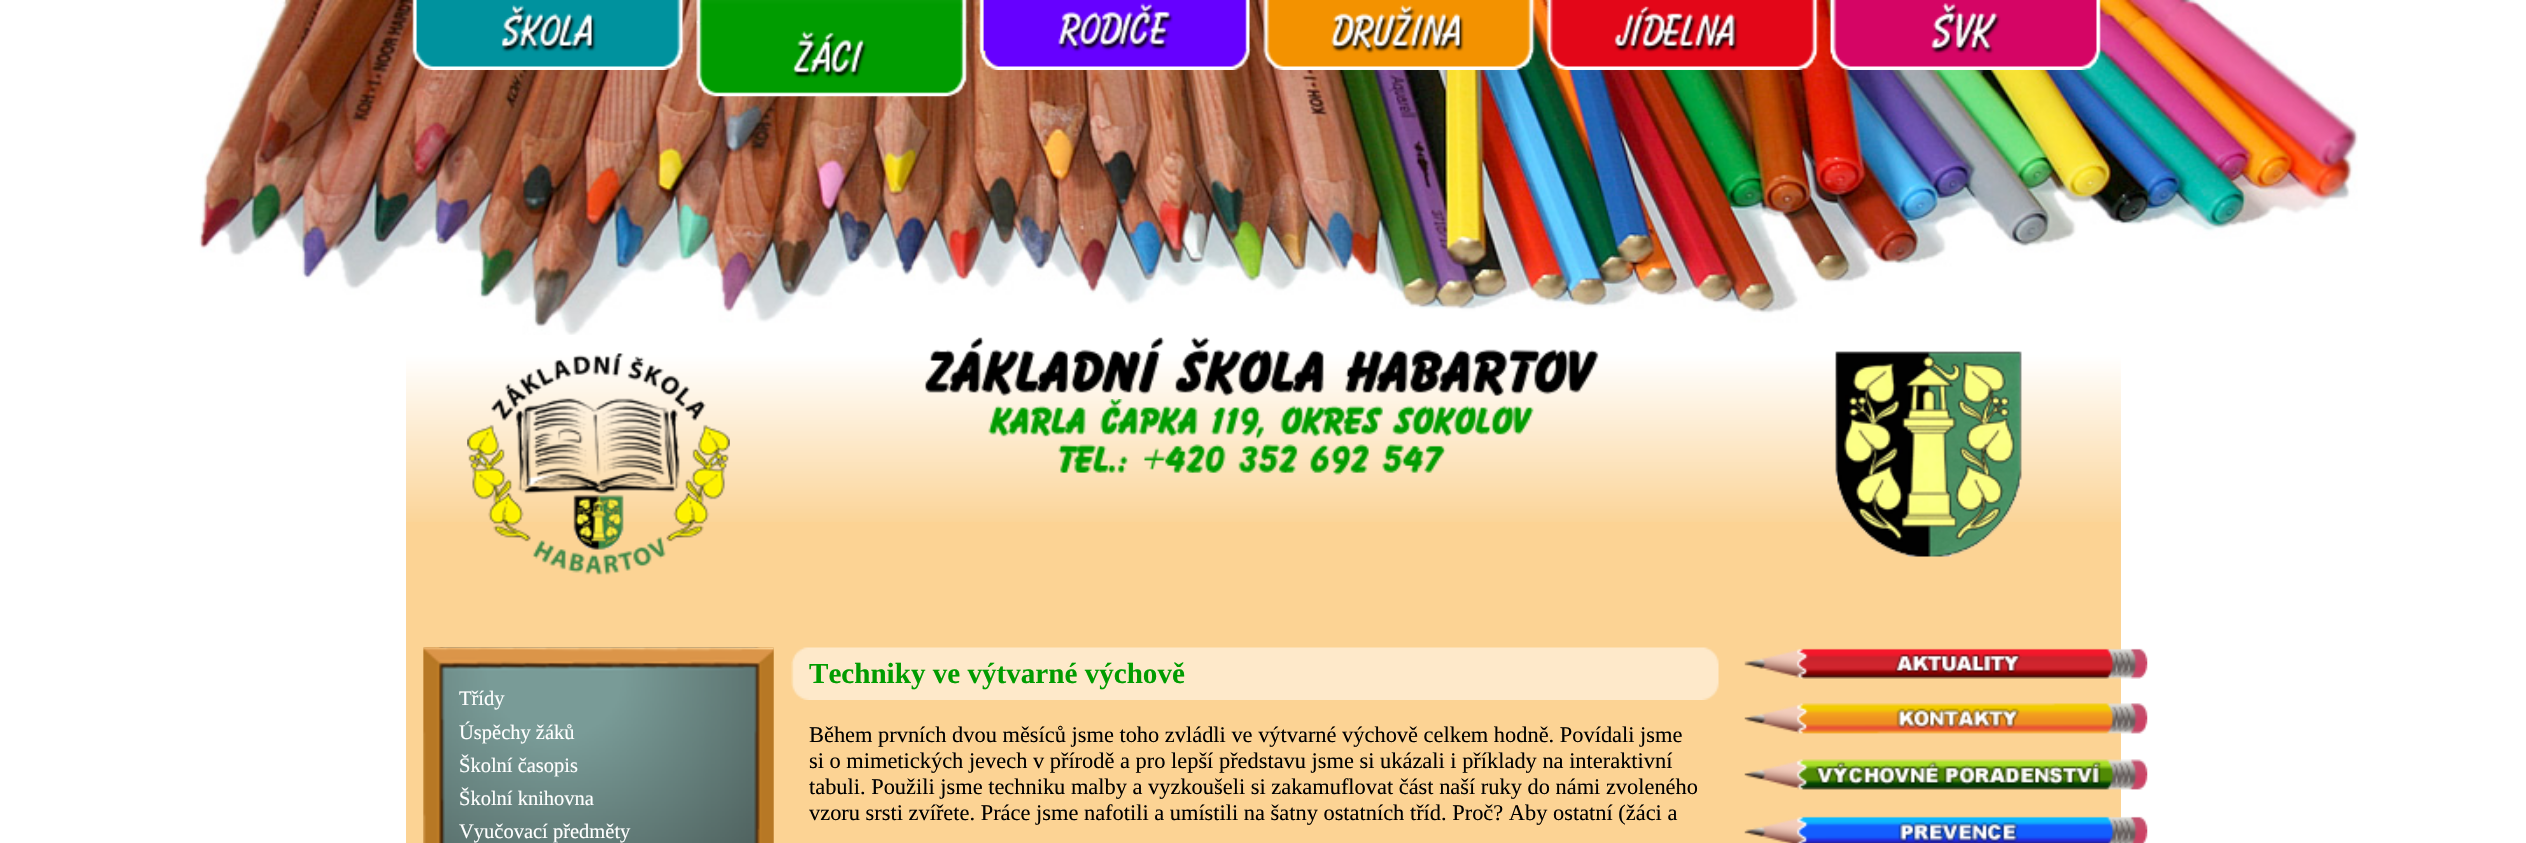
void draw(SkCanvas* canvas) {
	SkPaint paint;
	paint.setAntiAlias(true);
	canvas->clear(0xffffffff);
	canvas->drawImageRect(SkImages::DeferredFromEncodedData(SkData::MakeFromFileName("img1.png")), SkRect::MakeXYWH(199, 0, 2159, 335), SkSamplingOptions());
	canvas->drawImageRect(SkImages::DeferredFromEncodedData(SkData::MakeFromFileName("img2.png")), SkRect::MakeXYWH(412, 0, 273, 70), SkSamplingOptions());
	canvas->drawImageRect(SkImages::DeferredFromEncodedData(SkData::MakeFromFileName("img3.png")), SkRect::MakeXYWH(696, 0, 272, 97), SkSamplingOptions());
	canvas->drawImageRect(SkImages::DeferredFromEncodedData(SkData::MakeFromFileName("img4.png")), SkRect::MakeXYWH(978, 0, 274, 70), SkSamplingOptions());
	canvas->drawImageRect(SkImages::DeferredFromEncodedData(SkData::MakeFromFileName("img5.png")), SkRect::MakeXYWH(1263, 0, 273, 70), SkSamplingOptions());
	canvas->drawImageRect(SkImages::DeferredFromEncodedData(SkData::MakeFromFileName("img6.png")), SkRect::MakeXYWH(1546, 0, 273, 70), SkSamplingOptions());
	canvas->drawImageRect(SkImages::DeferredFromEncodedData(SkData::MakeFromFileName("img7.png")), SkRect::MakeXYWH(1829, 0, 272, 70), SkSamplingOptions());
	paint.setColor(0xfffcd394);
	canvas->drawRect(SkRect::MakeXYWH(406, 522, 1715, 321), paint);
	canvas->drawImageRect(SkImages::DeferredFromEncodedData(SkData::MakeFromFileName("img8.png")), SkRect::MakeXYWH(406, 350, 1715, 172), SkSamplingOptions());
	canvas->drawImageRect(SkImages::DeferredFromEncodedData(SkData::MakeFromFileName("img9.png")), SkRect::MakeXYWH(467, 353, 263, 222), SkSamplingOptions());
	canvas->drawImageRect(SkImages::DeferredFromEncodedData(SkData::MakeFromFileName("img10.png")), SkRect::MakeXYWH(924, 337, 241, 59), SkSamplingOptions());
	canvas->drawImageRect(SkImages::DeferredFromEncodedData(SkData::MakeFromFileName("img11.png")), SkRect::MakeXYWH(1175, 337, 149, 59), SkSamplingOptions());
	canvas->drawImageRect(SkImages::DeferredFromEncodedData(SkData::MakeFromFileName("img12.png")), SkRect::MakeXYWH(1345, 349, 254, 47), SkSamplingOptions());
	canvas->drawImageRect(SkImages::DeferredFromEncodedData(SkData::MakeFromFileName("img13.png")), SkRect::MakeXYWH(988, 405, 98, 32), SkSamplingOptions());
	canvas->drawImageRect(SkImages::DeferredFromEncodedData(SkData::MakeFromFileName("img14.png")), SkRect::MakeXYWH(1100, 399, 98, 38), SkSamplingOptions());
	canvas->drawImageRect(SkImages::DeferredFromEncodedData(SkData::MakeFromFileName("img15.png")), SkRect::MakeXYWH(1210, 405, 54, 35), SkSamplingOptions());
	canvas->drawImageRect(SkImages::DeferredFromEncodedData(SkData::MakeFromFileName("img16.png")), SkRect::MakeXYWH(1280, 405, 103, 32), SkSamplingOptions());
	canvas->drawImageRect(SkImages::DeferredFromEncodedData(SkData::MakeFromFileName("img17.png")), SkRect::MakeXYWH(1392, 405, 142, 32), SkSamplingOptions());
	canvas->drawImageRect(SkImages::DeferredFromEncodedData(SkData::MakeFromFileName("img18.png")), SkRect::MakeXYWH(1058, 444, 70, 29), SkSamplingOptions());
	canvas->drawImageRect(SkImages::DeferredFromEncodedData(SkData::MakeFromFileName("img19.png")), SkRect::MakeXYWH(1143, 444, 83, 29), SkSamplingOptions());
	canvas->drawImageRect(SkImages::DeferredFromEncodedData(SkData::MakeFromFileName("img20.png")), SkRect::MakeXYWH(1238, 444, 60, 29), SkSamplingOptions());
	canvas->drawImageRect(SkImages::DeferredFromEncodedData(SkData::MakeFromFileName("img21.png")), SkRect::MakeXYWH(1310, 444, 59, 31), SkSamplingOptions());
	canvas->drawImageRect(SkImages::DeferredFromEncodedData(SkData::MakeFromFileName("img22.png")), SkRect::MakeXYWH(1382, 444, 64, 29), SkSamplingOptions());
	canvas->drawImageRect(SkImages::DeferredFromEncodedData(SkData::MakeFromFileName("img23.png")), SkRect::MakeXYWH(1835, 351, 187, 206), SkSamplingOptions());
	canvas->drawImageRect(SkImages::DeferredFromEncodedData(SkData::MakeFromFileName("img24.png")), SkRect::MakeXYWH(423, 647, 351, 196), SkSamplingOptions());
	canvas->drawImageRect(SkImages::DeferredFromEncodedData(SkData::MakeFromFileName("img25.png")), SkRect::MakeXYWH(423, 647, 351, 196), SkSamplingOptions());
	SkFont f1(fontMgr->matchFamilyStyle("Liberation Serif", SkFontStyle::Normal()), 20.5);
	f1.setSubpixel(true);
	paint.setColor(0xffffffff);
	canvas->drawString("Třídy", 459, 705, f1, paint);
	canvas->drawString("Úspěchy žáků", 459, 739, f1, paint);
	canvas->drawString("Školní časopis", 459, 772, f1, paint);
	canvas->drawString("Školní knihovna", 459, 805, f1, paint);
	canvas->drawString("Vyučovací předměty", 459, 838, f1, paint);
	canvas->drawImageRect(SkImages::DeferredFromEncodedData(SkData::MakeFromFileName("img26.png")), SkRect::MakeXYWH(791, 647, 928, 53), SkSamplingOptions());
	SkFont f2(fontMgr->matchFamilyStyle("Liberation Serif", SkFontStyle::Bold()), 29.1);
	f2.setSubpixel(true);
	paint.setColor(0xff019c00);
	canvas->drawString("Techniky ve výtvarné výchově", 809, 683, f2, paint);
	SkFont f3(fontMgr->matchFamilyStyle("Liberation Serif", SkFontStyle::Normal()), 22.4);
	f3.setSubpixel(true);
	paint.setColor(0xff000000);
	canvas->drawString("Během prvních dvou měsíců jsme toho zvládli ve výtvarné výchově celkem hodně. Povídali jsme", 809, 742, f3, paint);
	canvas->drawString("si o mimetických jevech v přírodě a pro lepší představu jsme si ukázali i příklady na interaktivní", 809, 768, f3, paint);
	canvas->drawString("tabuli. Použili jsme techniku malby a vyzkoušeli si zakamuflovat část naší ruky do námi zvoleného", 809, 794, f3, paint);
	canvas->drawString("vzoru srsti zvířete. Práce jsme nafotili a umístili na šatny ostatních tříd. Proč? Aby ostatní (žáci a", 809, 820, f3, paint);
	canvas->drawImageRect(SkImages::DeferredFromEncodedData(SkData::MakeFromFileName("img27.png")), SkRect::MakeXYWH(1744, 648, 404, 31), SkSamplingOptions());
	canvas->drawImageRect(SkImages::DeferredFromEncodedData(SkData::MakeFromFileName("img28.png")), SkRect::MakeXYWH(1744, 703, 404, 31), SkSamplingOptions());
	canvas->drawImageRect(SkImages::DeferredFromEncodedData(SkData::MakeFromFileName("img29.png")), SkRect::MakeXYWH(1744, 759, 404, 31), SkSamplingOptions());
	canvas->drawImageRect(SkImages::DeferredFromEncodedData(SkData::MakeFromFileName("img30.png")), SkRect::MakeXYWH(1744, 816, 404, 27), SkSamplingOptions());
}
